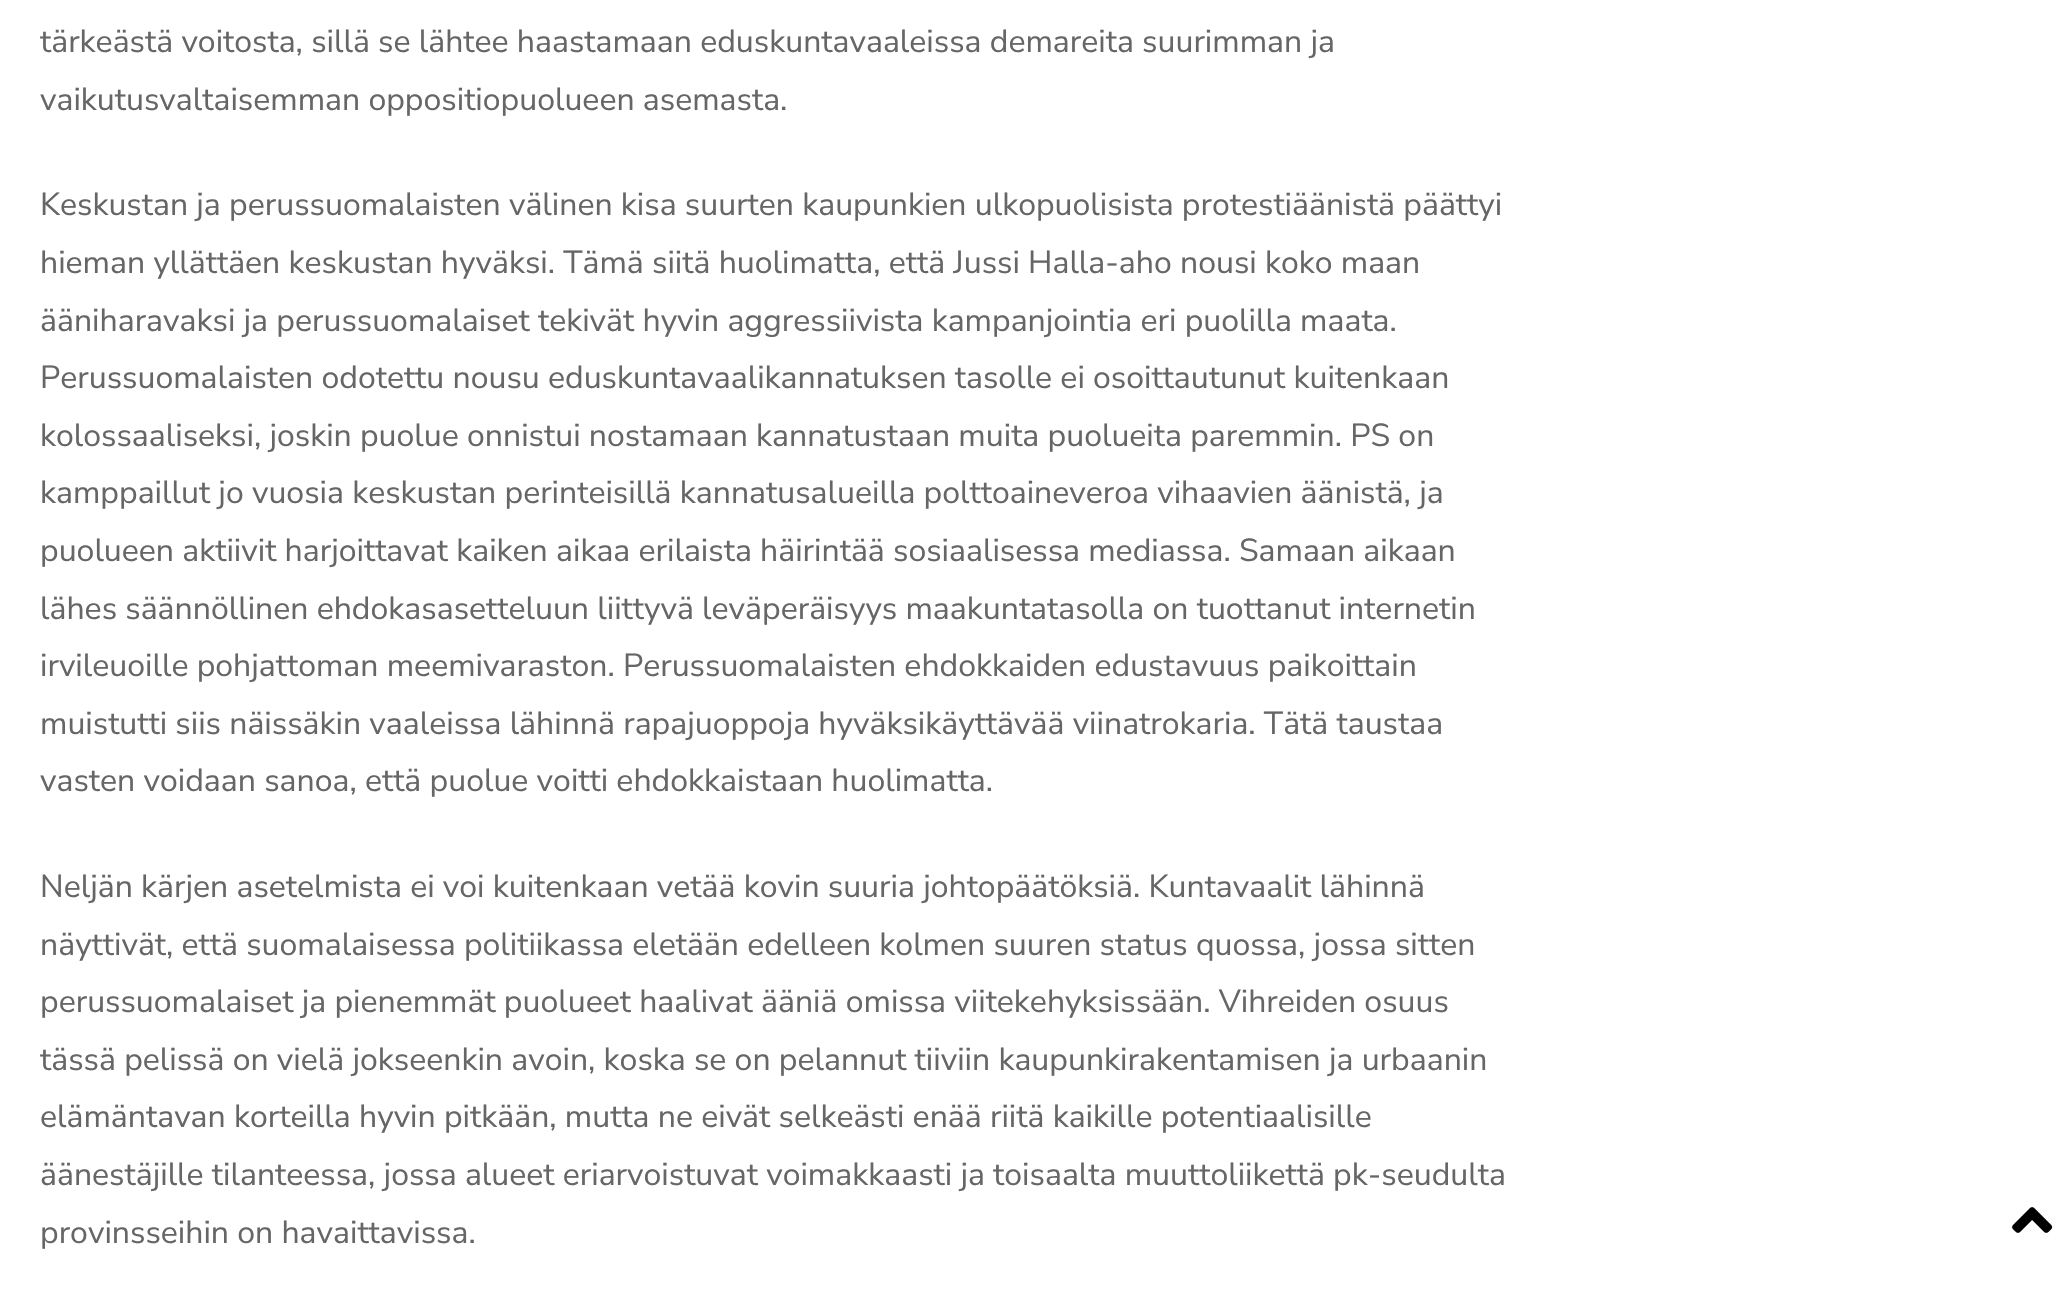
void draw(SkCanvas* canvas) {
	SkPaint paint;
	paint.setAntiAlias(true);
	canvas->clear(0xffffffff);
	SkFont f1(fontMgr->matchFamilyStyle("Nunito Sans", SkFontStyle::Normal()), 32);
	f1.setSubpixel(true);
	paint.setColor(0xff666666);
	canvas->drawString("tärkeästä voitosta, sillä se lähtee haastamaan eduskuntavaaleissa demareita suurimman ja", 40, 52, f1, paint);
	canvas->drawString("vaikutusvaltaisemman oppositiopuolueen asemasta.", 40, 110, f1, paint);
	canvas->drawString("Keskustan ja perussuomalaisten välinen kisa suurten kaupunkien ulkopuolisista protestiäänistä päättyi", 40, 215, f1, paint);
	canvas->drawString("hieman yllättäen keskustan hyväksi. Tämä siitä huolimatta, että Jussi Halla-aho nousi koko maan", 40, 273, f1, paint);
	canvas->drawString("ääniharavaksi ja perussuomalaiset tekivät hyvin aggressiivista kampanjointia eri puolilla maata.", 40, 331, f1, paint);
	canvas->drawString("Perussuomalaisten odotettu nousu eduskuntavaalikannatuksen tasolle ei osoittautunut kuitenkaan", 40, 388, f1, paint);
	canvas->drawString("kolossaaliseksi, joskin puolue onnistui nostamaan kannatustaan muita puolueita paremmin. PS on", 40, 446, f1, paint);
	canvas->drawString("kamppaillut jo vuosia keskustan perinteisillä kannatusalueilla polttoaineveroa vihaavien äänistä, ja", 40, 503, f1, paint);
	canvas->drawString("puolueen aktiivit harjoittavat kaiken aikaa erilaista häirintää sosiaalisessa mediassa. Samaan aikaan", 40, 561, f1, paint);
	canvas->drawString("lähes säännöllinen ehdokasasetteluun liittyvä leväperäisyys maakuntatasolla on tuottanut internetin", 40, 619, f1, paint);
	canvas->drawString("irvileuoille pohjattoman meemivaraston. Perussuomalaisten ehdokkaiden edustavuus paikoittain", 40, 676, f1, paint);
	canvas->drawString("muistutti siis näissäkin vaaleissa lähinnä rapajuoppoja hyväksikäyttävää viinatrokaria. Tätä taustaa", 40, 734, f1, paint);
	canvas->drawString("vasten voidaan sanoa, että puolue voitti ehdokkaistaan huolimatta.", 40, 791, f1, paint);
	canvas->drawString("Neljän kärjen asetelmista ei voi kuitenkaan vetää kovin suuria johtopäätöksiä. Kuntavaalit lähinnä", 40, 897, f1, paint);
	canvas->drawString("näyttivät, että suomalaisessa politiikassa eletään edelleen kolmen suuren status quossa, jossa sitten", 40, 955, f1, paint);
	canvas->drawString("perussuomalaiset ja pienemmät puolueet haalivat ääniä omissa viitekehyksissään. Vihreiden osuus", 40, 1012, f1, paint);
	canvas->drawString("tässä pelissä on vielä jokseenkin avoin, koska se on pelannut tiiviin kaupunkirakentamisen ja urbaanin", 40, 1070, f1, paint);
	canvas->drawString("elämäntavan korteilla hyvin pitkään, mutta ne eivät selkeästi enää riitä kaikille potentiaalisille", 40, 1127, f1, paint);
	canvas->drawString("äänestäjille tilanteessa, jossa alueet eriarvoistuvat voimakkaasti ja toisaalta muuttoliikettä pk-seudulta", 40, 1185, f1, paint);
	canvas->drawString("provinsseihin on havaittavissa.", 40, 1243, f1, paint);
	canvas->drawImageRect(SkImages::DeferredFromEncodedData(SkData::MakeFromFileName("img1.png")), SkRect::MakeXYWH(2012, 1207, 41, 26), SkSamplingOptions());
}
